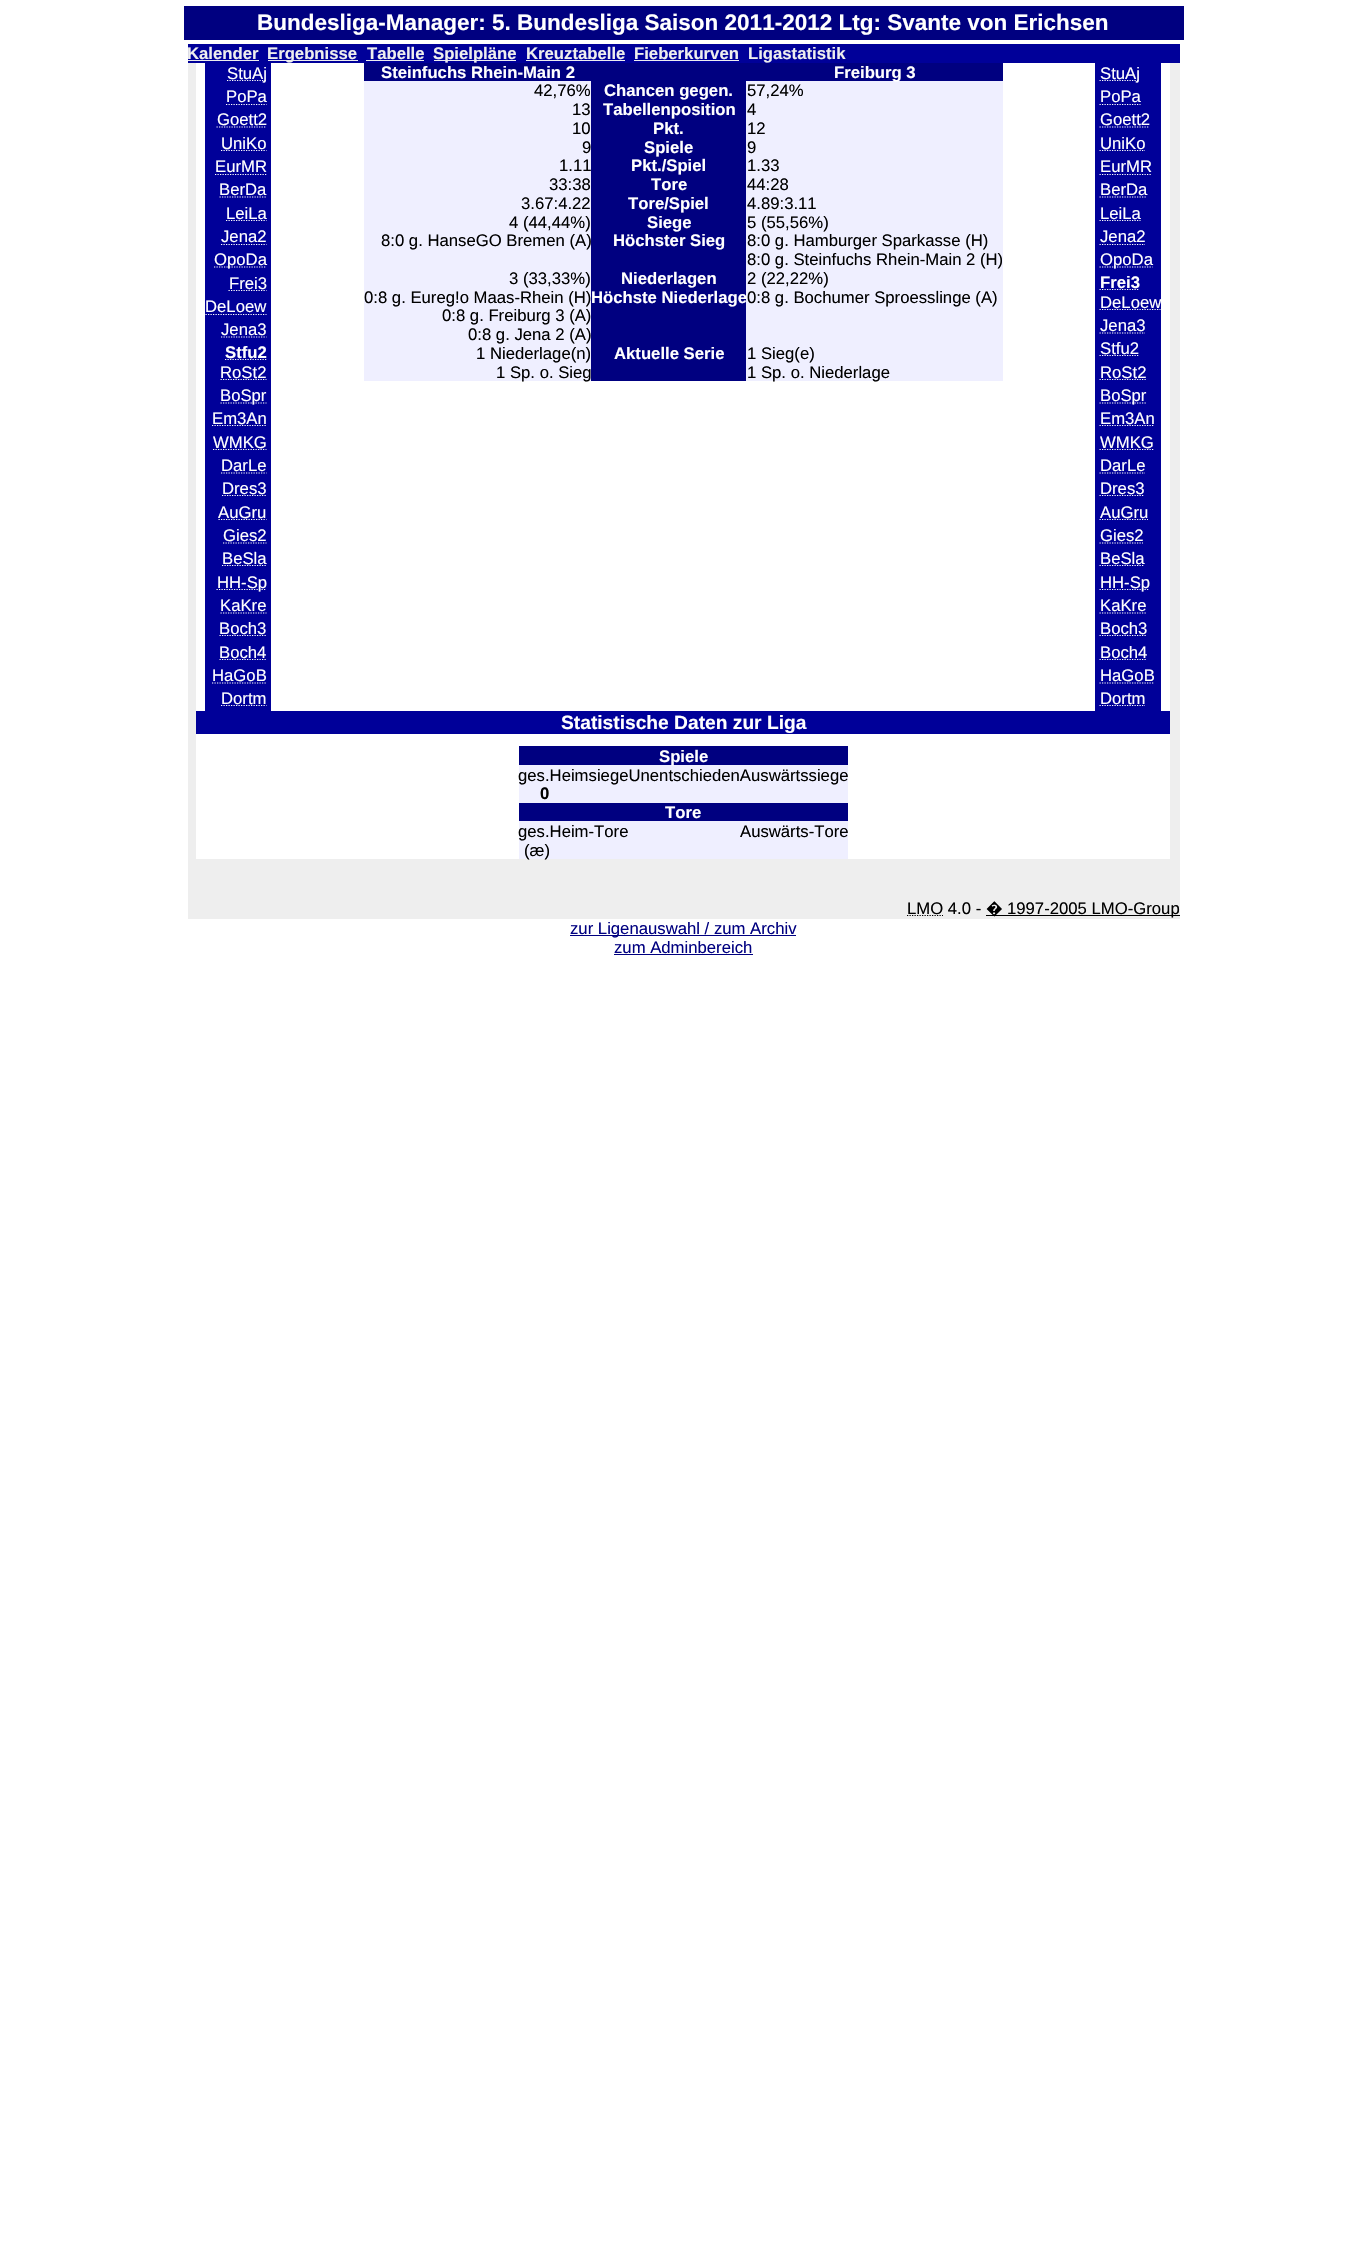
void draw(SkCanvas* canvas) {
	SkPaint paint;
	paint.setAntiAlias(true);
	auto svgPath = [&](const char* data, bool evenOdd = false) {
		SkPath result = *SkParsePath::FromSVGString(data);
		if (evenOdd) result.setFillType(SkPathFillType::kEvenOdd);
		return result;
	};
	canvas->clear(0xffffffff);
	paint.setColor(0xff000080);
	canvas->drawRect(SkRect::MakeXYWH(184, 6, 1000, 34), paint);
	SkFont f1(fontMgr->matchFamilyStyle("Liberation Sans", SkFontStyle::Bold()), 22.5);
	f1.setSubpixel(true);
	paint.setColor(0xffffffff);
	canvas->drawString("Bundesliga-Manager: 5. Bundesliga Saison 2011-2012 Ltg: Svante von Erichsen", 257, 30, f1, paint);
	paint.setColor(0xffeeeeee);
	canvas->drawRect(SkRect::MakeXYWH(188, 63, 992, 856), paint);
	paint.setColor(0xff000099);
	canvas->drawRect(SkRect::MakeXYWH(188, 44, 992, 19), paint);
	SkFont f2(fontMgr->matchFamilyStyle("Liberation Sans", SkFontStyle::Bold()), 16.7);
	f2.setSubpixel(true);
	paint.setColor(0xffeeeeee);
	canvas->drawString("Kalender", 187, 59, f2, paint);
	canvas->drawRect(SkRect::MakeXYWH(188, 60, 71, 1), paint);
	canvas->drawRect(SkRect::MakeXYWH(268, 60, 90, 1), paint);
	canvas->drawString("Ergebnisse", 267, 59, f2, paint);
	canvas->drawString("Tabelle", 367, 59, f2, paint);
	canvas->drawRect(SkRect::MakeXYWH(366, 60, 58, 1), paint);
	canvas->drawRect(SkRect::MakeXYWH(434, 60, 82, 1), paint);
	canvas->drawString("Spielpläne", 433, 59, f2, paint);
	canvas->drawString("Kreuztabelle", 526, 59, f2, paint);
	canvas->drawRect(SkRect::MakeXYWH(526, 60, 99, 1), paint);
	canvas->drawString("Fieberkurven", 634, 59, f2, paint);
	canvas->drawRect(SkRect::MakeXYWH(634, 60, 105, 1), paint);
	canvas->drawString("Ligastatistik", 748, 59, f2, paint);
	paint.setColor(0xffffffff);
	canvas->drawRect(SkRect::MakeXYWH(196, 63, 974, 648), paint);
	paint.setColor(0xff000099);
	canvas->drawRect(SkRect::MakeXYWH(205, 63, 66, 648), paint);
	paint.setStroke(true);
	paint.setStrokeWidth(1.2);
	paint.setColor(0xffffffff);
	paint.setPathEffect(SkDashPathEffect::Make({{1.25f, 1.25f}}, 0));
	canvas->drawPath(svgPath("M227 80.5H266.5"), paint);
	paint.setPathEffect(nullptr);
	SkFont f3(fontMgr->matchFamilyStyle("Liberation Sans", SkFontStyle::Normal()), 16.7);
	f3.setSubpixel(true);
	paint.setStroke(false);
	canvas->drawString("StuAj", 227, 79, f3, paint);
	canvas->drawString("PoPa", 226, 102, f3, paint);
	paint.setStroke(true);
	paint.setPathEffect(SkDashPathEffect::Make({{1.25f, 1.25f}}, 0));
	canvas->drawPath(svgPath("M226 104.5H266.5"), paint);
	paint.setPathEffect(nullptr);
	paint.setStroke(false);
	canvas->drawString("Goett2", 217, 125, f3, paint);
	paint.setStroke(true);
	paint.setPathEffect(SkDashPathEffect::Make({{1.25f, 1.25f}}, 0));
	canvas->drawPath(svgPath("M216.5 127H266.5"), paint);
	paint.setPathEffect(nullptr);
	paint.setPathEffect(SkDashPathEffect::Make({{1.25f, 1.25f}}, 0));
	canvas->drawPath(svgPath("M221 150.5H266.5"), paint);
	paint.setPathEffect(nullptr);
	paint.setStroke(false);
	canvas->drawString("UniKo", 221, 149, f3, paint);
	canvas->drawString("EurMR", 215, 172, f3, paint);
	paint.setStroke(true);
	paint.setPathEffect(SkDashPathEffect::Make({{1.25f, 1.25f}}, 0));
	canvas->drawPath(svgPath("M215 174.5H266.5"), paint);
	paint.setPathEffect(nullptr);
	paint.setStroke(false);
	canvas->drawString("BerDa", 219, 195, f3, paint);
	paint.setStroke(true);
	paint.setPathEffect(SkDashPathEffect::Make({{1.25f, 1.25f}}, 0));
	canvas->drawPath(svgPath("M219.5 197H266.5"), paint);
	paint.setPathEffect(nullptr);
	paint.setPathEffect(SkDashPathEffect::Make({{1.25f, 1.25f}}, 0));
	canvas->drawPath(svgPath("M226 220.5H266.5"), paint);
	paint.setPathEffect(nullptr);
	paint.setStroke(false);
	canvas->drawString("LeiLa", 226, 219, f3, paint);
	canvas->drawString("Jena2", 221, 242, f3, paint);
	paint.setStroke(true);
	paint.setPathEffect(SkDashPathEffect::Make({{1.25f, 1.25f}}, 0));
	canvas->drawPath(svgPath("M221 244.5H266.5"), paint);
	paint.setPathEffect(nullptr);
	paint.setPathEffect(SkDashPathEffect::Make({{1.25f, 1.25f}}, 0));
	canvas->drawPath(svgPath("M214 267H266.5"), paint);
	paint.setPathEffect(nullptr);
	paint.setStroke(false);
	canvas->drawString("OpoDa", 214, 265, f3, paint);
	paint.setStroke(true);
	paint.setPathEffect(SkDashPathEffect::Make({{1.25f, 1.25f}}, 0));
	canvas->drawPath(svgPath("M228.5 290.5H266.5"), paint);
	paint.setPathEffect(nullptr);
	paint.setStroke(false);
	canvas->drawString("Frei3", 229, 289, f3, paint);
	canvas->drawString("DeLoew", 205, 312, f3, paint);
	paint.setStroke(true);
	paint.setPathEffect(SkDashPathEffect::Make({{1.25f, 1.25f}}, 0));
	canvas->drawPath(svgPath("M205.5 314.5H266.5"), paint);
	paint.setPathEffect(nullptr);
	paint.setStroke(false);
	canvas->drawString("Jena3", 221, 335, f3, paint);
	paint.setStroke(true);
	paint.setPathEffect(SkDashPathEffect::Make({{1.25f, 1.25f}}, 0));
	canvas->drawPath(svgPath("M221 337H266.5"), paint);
	paint.setPathEffect(nullptr);
	paint.setPathEffect(SkDashPathEffect::Make({{1.25f, 1.25f}}, 0));
	canvas->drawPath(svgPath("M225 359.5H266.5"), paint);
	paint.setPathEffect(nullptr);
	paint.setStroke(false);
	canvas->drawString("Stfu2", 225, 358, f2, paint);
	paint.setStroke(true);
	paint.setPathEffect(SkDashPathEffect::Make({{1.25f, 1.25f}}, 0));
	canvas->drawPath(svgPath("M220.5 379.5H266.5"), paint);
	paint.setPathEffect(nullptr);
	paint.setStroke(false);
	canvas->drawString("RoSt2", 220, 378, f3, paint);
	paint.setStroke(true);
	paint.setPathEffect(SkDashPathEffect::Make({{1.25f, 1.25f}}, 0));
	canvas->drawPath(svgPath("M220.5 403H266.5"), paint);
	paint.setPathEffect(nullptr);
	paint.setStroke(false);
	canvas->drawString("BoSpr", 220, 401, f3, paint);
	paint.setStroke(true);
	paint.setPathEffect(SkDashPathEffect::Make({{1.25f, 1.25f}}, 0));
	canvas->drawPath(svgPath("M212 425.5H266.5"), paint);
	paint.setPathEffect(nullptr);
	paint.setStroke(false);
	canvas->drawString("Em3An", 212, 424, f3, paint);
	paint.setStroke(true);
	paint.setPathEffect(SkDashPathEffect::Make({{1.25f, 1.25f}}, 0));
	canvas->drawPath(svgPath("M213 449.5H266.5"), paint);
	paint.setPathEffect(nullptr);
	paint.setStroke(false);
	canvas->drawString("WMKG", 213, 448, f3, paint);
	canvas->drawString("DarLe", 221, 471, f3, paint);
	paint.setStroke(true);
	paint.setPathEffect(SkDashPathEffect::Make({{1.25f, 1.25f}}, 0));
	canvas->drawPath(svgPath("M221 473H266.5"), paint);
	paint.setPathEffect(nullptr);
	paint.setPathEffect(SkDashPathEffect::Make({{1.25f, 1.25f}}, 0));
	canvas->drawPath(svgPath("M222 495.5H266.5"), paint);
	paint.setPathEffect(nullptr);
	paint.setStroke(false);
	canvas->drawString("Dres3", 222, 494, f3, paint);
	paint.setStroke(true);
	paint.setPathEffect(SkDashPathEffect::Make({{1.25f, 1.25f}}, 0));
	canvas->drawPath(svgPath("M218.5 519.5H266.5"), paint);
	paint.setPathEffect(nullptr);
	paint.setStroke(false);
	canvas->drawString("AuGru", 218, 518, f3, paint);
	canvas->drawString("Gies2", 223, 541, f3, paint);
	paint.setStroke(true);
	paint.setPathEffect(SkDashPathEffect::Make({{1.25f, 1.25f}}, 0));
	canvas->drawPath(svgPath("M223 543H266.5"), paint);
	paint.setPathEffect(nullptr);
	paint.setPathEffect(SkDashPathEffect::Make({{1.25f, 1.25f}}, 0));
	canvas->drawPath(svgPath("M222 565.5H266.5"), paint);
	paint.setPathEffect(nullptr);
	paint.setStroke(false);
	canvas->drawString("BeSla", 222, 564, f3, paint);
	paint.setStroke(true);
	paint.setPathEffect(SkDashPathEffect::Make({{1.25f, 1.25f}}, 0));
	canvas->drawPath(svgPath("M216.5 589.5H266.5"), paint);
	paint.setPathEffect(nullptr);
	paint.setStroke(false);
	canvas->drawString("HH-Sp", 217, 588, f3, paint);
	canvas->drawString("KaKre", 220, 611, f3, paint);
	paint.setStroke(true);
	paint.setPathEffect(SkDashPathEffect::Make({{1.25f, 1.25f}}, 0));
	canvas->drawPath(svgPath("M220.5 613H266.5"), paint);
	paint.setPathEffect(nullptr);
	paint.setPathEffect(SkDashPathEffect::Make({{1.25f, 1.25f}}, 0));
	canvas->drawPath(svgPath("M219.5 635.5H266.5"), paint);
	paint.setPathEffect(nullptr);
	paint.setStroke(false);
	canvas->drawString("Boch3", 219, 634, f3, paint);
	paint.setStroke(true);
	paint.setPathEffect(SkDashPathEffect::Make({{1.25f, 1.25f}}, 0));
	canvas->drawPath(svgPath("M219.5 659.5H266.5"), paint);
	paint.setPathEffect(nullptr);
	paint.setStroke(false);
	canvas->drawString("Boch4", 219, 658, f3, paint);
	canvas->drawString("HaGoB", 212, 681, f3, paint);
	paint.setStroke(true);
	paint.setPathEffect(SkDashPathEffect::Make({{1.25f, 1.25f}}, 0));
	canvas->drawPath(svgPath("M212 683H266.5"), paint);
	paint.setPathEffect(nullptr);
	paint.setPathEffect(SkDashPathEffect::Make({{1.25f, 1.25f}}, 0));
	canvas->drawPath(svgPath("M221 705.5H266.5"), paint);
	paint.setPathEffect(nullptr);
	paint.setStroke(false);
	canvas->drawString("Dortm", 221, 704, f3, paint);
	paint.setColor(0xffefefff);
	canvas->drawRect(SkRect::MakeXYWH(364, 81, 639, 300), paint);
	paint.setColor(0xff000080);
	canvas->drawRect(SkRect::MakeXYWH(364, 63, 639, 18), paint);
	paint.setColor(0xffffffff);
	canvas->drawString("Steinfuchs Rhein-Main 2", 381, 78, f2, paint);
	canvas->drawString("Freiburg 3", 834, 78, f2, paint);
	paint.setColor(0xff000000);
	canvas->drawString("42,76%", 534, 96, f3, paint);
	paint.setColor(0xff000080);
	canvas->drawRect(SkRect::MakeXYWH(591, 81, 155, 300), paint);
	paint.setColor(0xffffffff);
	canvas->drawString("Chancen gegen.", 604, 96, f2, paint);
	paint.setColor(0xff000000);
	canvas->drawString("57,24%", 747, 96, f3, paint);
	canvas->drawString("13", 572, 115, f3, paint);
	paint.setColor(0xffffffff);
	canvas->drawString("Tabellenposition", 603, 115, f2, paint);
	paint.setColor(0xff000000);
	canvas->drawString("4", 747, 115, f3, paint);
	canvas->drawString("10", 572, 134, f3, paint);
	paint.setColor(0xffffffff);
	canvas->drawString("Pkt.", 653, 134, f2, paint);
	paint.setColor(0xff000000);
	canvas->drawString("12", 747, 134, f3, paint);
	canvas->drawString("9", 582, 153, f3, paint);
	paint.setColor(0xffffffff);
	canvas->drawString("Spiele", 644, 153, f2, paint);
	paint.setColor(0xff000000);
	canvas->drawString("9", 747, 153, f3, paint);
	canvas->drawString("1.11", 559, 171, f3, paint);
	paint.setColor(0xffffffff);
	canvas->drawString("Pkt./Spiel", 631, 171, f2, paint);
	paint.setColor(0xff000000);
	canvas->drawString("1.33", 747, 171, f3, paint);
	canvas->drawString("33:38", 549, 190, f3, paint);
	paint.setColor(0xffffffff);
	canvas->drawString("Tore", 651, 190, f2, paint);
	paint.setColor(0xff000000);
	canvas->drawString("44:28", 747, 190, f3, paint);
	canvas->drawString("3.67:4.22", 521, 209, f3, paint);
	paint.setColor(0xffffffff);
	canvas->drawString("Tore/Spiel", 628, 209, f2, paint);
	paint.setColor(0xff000000);
	canvas->drawString("4.89:3.11", 747, 209, f3, paint);
	canvas->drawString("4 (44,44%)", 509, 228, f3, paint);
	paint.setColor(0xffffffff);
	canvas->drawString("Siege", 647, 228, f2, paint);
	paint.setColor(0xff000000);
	canvas->drawString("5 (55,56%)", 747, 228, f3, paint);
	canvas->drawString("8:0 g. HanseGO Bremen (A)", 381, 246, f3, paint);
	paint.setColor(0xffffffff);
	canvas->drawString("Höchster Sieg", 613, 246, f2, paint);
	paint.setColor(0xff000000);
	canvas->drawString("8:0 g. Hamburger Sparkasse (H)", 747, 246, f3, paint);
	canvas->drawString("8:0 g. Steinfuchs Rhein-Main 2 (H)", 747, 265, f3, paint);
	canvas->drawString("3 (33,33%)", 509, 284, f3, paint);
	paint.setColor(0xffffffff);
	canvas->drawString("Niederlagen", 621, 284, f2, paint);
	paint.setColor(0xff000000);
	canvas->drawString("2 (22,22%)", 747, 284, f3, paint);
	canvas->drawString("0:8 g. Eureg!o Maas-Rhein (H)", 364, 303, f3, paint);
	canvas->drawString("0:8 g. Freiburg 3 (A)", 442, 321, f3, paint);
	canvas->drawString("0:8 g. Jena 2 (A)", 468, 340, f3, paint);
	paint.setColor(0xffffffff);
	canvas->drawString("Höchste Niederlage", 591, 303, f2, paint);
	paint.setColor(0xff000000);
	canvas->drawString("0:8 g. Bochumer Sproesslinge (A)", 747, 303, f3, paint);
	canvas->drawString("1 Niederlage(n)", 476, 359, f3, paint);
	canvas->drawString("1 Sp. o. Sieg", 496, 378, f3, paint);
	paint.setColor(0xffffffff);
	canvas->drawString("Aktuelle Serie", 614, 359, f2, paint);
	paint.setColor(0xff000000);
	canvas->drawString("1 Sieg(e)", 747, 359, f3, paint);
	canvas->drawString("1 Sp. o. Niederlage", 747, 378, f3, paint);
	paint.setColor(0xff000099);
	canvas->drawRect(SkRect::MakeXYWH(1095, 63, 66, 648), paint);
	paint.setStroke(true);
	paint.setColor(0xffffffff);
	paint.setPathEffect(SkDashPathEffect::Make({{1.25f, 1.25f}}, 0));
	canvas->drawPath(svgPath("M1099.5 80.5H1139.5"), paint);
	paint.setPathEffect(nullptr);
	paint.setStroke(false);
	canvas->drawString("StuAj", 1100, 79, f3, paint);
	canvas->drawString("PoPa", 1100, 102, f3, paint);
	paint.setStroke(true);
	paint.setPathEffect(SkDashPathEffect::Make({{1.25f, 1.25f}}, 0));
	canvas->drawPath(svgPath("M1099.5 104.5H1140.5"), paint);
	paint.setPathEffect(nullptr);
	paint.setStroke(false);
	canvas->drawString("Goett2", 1100, 125, f3, paint);
	paint.setStroke(true);
	paint.setPathEffect(SkDashPathEffect::Make({{1.25f, 1.25f}}, 0));
	canvas->drawPath(svgPath("M1099.5 127H1149.5"), paint);
	paint.setPathEffect(nullptr);
	paint.setPathEffect(SkDashPathEffect::Make({{1.25f, 1.25f}}, 0));
	canvas->drawPath(svgPath("M1099.5 150.5H1145"), paint);
	paint.setPathEffect(nullptr);
	paint.setStroke(false);
	canvas->drawString("UniKo", 1100, 149, f3, paint);
	canvas->drawString("EurMR", 1100, 172, f3, paint);
	paint.setStroke(true);
	paint.setPathEffect(SkDashPathEffect::Make({{1.25f, 1.25f}}, 0));
	canvas->drawPath(svgPath("M1099.5 174.5H1151.5"), paint);
	paint.setPathEffect(nullptr);
	paint.setStroke(false);
	canvas->drawString("BerDa", 1100, 195, f3, paint);
	paint.setStroke(true);
	paint.setPathEffect(SkDashPathEffect::Make({{1.25f, 1.25f}}, 0));
	canvas->drawPath(svgPath("M1099.5 197H1147"), paint);
	paint.setPathEffect(nullptr);
	paint.setPathEffect(SkDashPathEffect::Make({{1.25f, 1.25f}}, 0));
	canvas->drawPath(svgPath("M1099.5 220.5H1140.5"), paint);
	paint.setPathEffect(nullptr);
	paint.setStroke(false);
	canvas->drawString("LeiLa", 1100, 219, f3, paint);
	canvas->drawString("Jena2", 1100, 242, f3, paint);
	paint.setStroke(true);
	paint.setPathEffect(SkDashPathEffect::Make({{1.25f, 1.25f}}, 0));
	canvas->drawPath(svgPath("M1099.5 244.5H1145"), paint);
	paint.setPathEffect(nullptr);
	paint.setPathEffect(SkDashPathEffect::Make({{1.25f, 1.25f}}, 0));
	canvas->drawPath(svgPath("M1099.5 267H1152.5"), paint);
	paint.setPathEffect(nullptr);
	paint.setStroke(false);
	canvas->drawString("OpoDa", 1100, 265, f3, paint);
	paint.setStroke(true);
	paint.setPathEffect(SkDashPathEffect::Make({{1.25f, 1.25f}}, 0));
	canvas->drawPath(svgPath("M1099.5 289.5H1139.5"), paint);
	paint.setPathEffect(nullptr);
	paint.setStroke(false);
	canvas->drawString("Frei3", 1100, 288, f2, paint);
	paint.setStroke(true);
	paint.setPathEffect(SkDashPathEffect::Make({{1.25f, 1.25f}}, 0));
	canvas->drawPath(svgPath("M1099.5 309.5H1160.5"), paint);
	paint.setPathEffect(nullptr);
	paint.setStroke(false);
	canvas->drawString("DeLoew", 1100, 308, f3, paint);
	canvas->drawString("Jena3", 1100, 331, f3, paint);
	paint.setStroke(true);
	paint.setPathEffect(SkDashPathEffect::Make({{1.25f, 1.25f}}, 0));
	canvas->drawPath(svgPath("M1099.5 333H1145"), paint);
	paint.setPathEffect(nullptr);
	paint.setPathEffect(SkDashPathEffect::Make({{1.25f, 1.25f}}, 0));
	canvas->drawPath(svgPath("M1099.5 355.5H1138.5"), paint);
	paint.setPathEffect(nullptr);
	paint.setStroke(false);
	canvas->drawString("Stfu2", 1100, 354, f3, paint);
	paint.setStroke(true);
	paint.setPathEffect(SkDashPathEffect::Make({{1.25f, 1.25f}}, 0));
	canvas->drawPath(svgPath("M1099.5 379.5H1146"), paint);
	paint.setPathEffect(nullptr);
	paint.setStroke(false);
	canvas->drawString("RoSt2", 1100, 378, f3, paint);
	paint.setStroke(true);
	paint.setPathEffect(SkDashPathEffect::Make({{1.25f, 1.25f}}, 0));
	canvas->drawPath(svgPath("M1099.5 403H1146"), paint);
	paint.setPathEffect(nullptr);
	paint.setStroke(false);
	canvas->drawString("BoSpr", 1100, 401, f3, paint);
	paint.setStroke(true);
	paint.setPathEffect(SkDashPathEffect::Make({{1.25f, 1.25f}}, 0));
	canvas->drawPath(svgPath("M1099.5 425.5H1154.5"), paint);
	paint.setPathEffect(nullptr);
	paint.setStroke(false);
	canvas->drawString("Em3An", 1100, 424, f3, paint);
	paint.setStroke(true);
	paint.setPathEffect(SkDashPathEffect::Make({{1.25f, 1.25f}}, 0));
	canvas->drawPath(svgPath("M1099.5 449.5H1153.5"), paint);
	paint.setPathEffect(nullptr);
	paint.setStroke(false);
	canvas->drawString("WMKG", 1100, 448, f3, paint);
	canvas->drawString("DarLe", 1100, 471, f3, paint);
	paint.setStroke(true);
	paint.setPathEffect(SkDashPathEffect::Make({{1.25f, 1.25f}}, 0));
	canvas->drawPath(svgPath("M1099.5 473H1145"), paint);
	paint.setPathEffect(nullptr);
	paint.setPathEffect(SkDashPathEffect::Make({{1.25f, 1.25f}}, 0));
	canvas->drawPath(svgPath("M1099.5 495.5H1144"), paint);
	paint.setPathEffect(nullptr);
	paint.setStroke(false);
	canvas->drawString("Dres3", 1100, 494, f3, paint);
	paint.setStroke(true);
	paint.setPathEffect(SkDashPathEffect::Make({{1.25f, 1.25f}}, 0));
	canvas->drawPath(svgPath("M1099.5 519.5H1148"), paint);
	paint.setPathEffect(nullptr);
	paint.setStroke(false);
	canvas->drawString("AuGru", 1100, 518, f3, paint);
	canvas->drawString("Gies2", 1100, 541, f3, paint);
	paint.setStroke(true);
	paint.setPathEffect(SkDashPathEffect::Make({{1.25f, 1.25f}}, 0));
	canvas->drawPath(svgPath("M1099.5 543H1143"), paint);
	paint.setPathEffect(nullptr);
	paint.setPathEffect(SkDashPathEffect::Make({{1.25f, 1.25f}}, 0));
	canvas->drawPath(svgPath("M1099.5 565.5H1144"), paint);
	paint.setPathEffect(nullptr);
	paint.setStroke(false);
	canvas->drawString("BeSla", 1100, 564, f3, paint);
	paint.setStroke(true);
	paint.setPathEffect(SkDashPathEffect::Make({{1.25f, 1.25f}}, 0));
	canvas->drawPath(svgPath("M1099.5 589.5H1149.5"), paint);
	paint.setPathEffect(nullptr);
	paint.setStroke(false);
	canvas->drawString("HH-Sp", 1100, 588, f3, paint);
	canvas->drawString("KaKre", 1100, 611, f3, paint);
	paint.setStroke(true);
	paint.setPathEffect(SkDashPathEffect::Make({{1.25f, 1.25f}}, 0));
	canvas->drawPath(svgPath("M1099.5 613H1146"), paint);
	paint.setPathEffect(nullptr);
	paint.setPathEffect(SkDashPathEffect::Make({{1.25f, 1.25f}}, 0));
	canvas->drawPath(svgPath("M1099.5 635.5H1147"), paint);
	paint.setPathEffect(nullptr);
	paint.setStroke(false);
	canvas->drawString("Boch3", 1100, 634, f3, paint);
	paint.setStroke(true);
	paint.setPathEffect(SkDashPathEffect::Make({{1.25f, 1.25f}}, 0));
	canvas->drawPath(svgPath("M1099.5 659.5H1147"), paint);
	paint.setPathEffect(nullptr);
	paint.setStroke(false);
	canvas->drawString("Boch4", 1100, 658, f3, paint);
	canvas->drawString("HaGoB", 1100, 681, f3, paint);
	paint.setStroke(true);
	paint.setPathEffect(SkDashPathEffect::Make({{1.25f, 1.25f}}, 0));
	canvas->drawPath(svgPath("M1099.5 683H1154.5"), paint);
	paint.setPathEffect(nullptr);
	paint.setPathEffect(SkDashPathEffect::Make({{1.25f, 1.25f}}, 0));
	canvas->drawPath(svgPath("M1099.5 705.5H1145"), paint);
	paint.setPathEffect(nullptr);
	paint.setStroke(false);
	canvas->drawString("Dortm", 1100, 704, f3, paint);
	canvas->drawRect(SkRect::MakeXYWH(196, 734, 974, 125), paint);
	paint.setColor(0xff000099);
	canvas->drawRect(SkRect::MakeXYWH(196, 711, 974, 23), paint);
	SkFont f4(fontMgr->matchFamilyStyle("Liberation Sans", SkFontStyle::Bold()), 19.2);
	f4.setSubpixel(true);
	paint.setColor(0xffffffff);
	canvas->drawString("Statistische Daten zur Liga", 561, 729, f4, paint);
	paint.setColor(0xffefefff);
	canvas->drawRect(SkRect::MakeXYWH(519, 765, 329, 94), paint);
	paint.setColor(0xff000080);
	canvas->drawRect(SkRect::MakeXYWH(519, 746, 329, 19), paint);
	paint.setColor(0xffffffff);
	canvas->drawString("Spiele", 659, 762, f2, paint);
	paint.setColor(0xff000000);
	canvas->drawString("ges.HeimsiegeUnentschiedenAuswärtssiege", 518, 781, f3, paint);
	canvas->drawString("0", 540, 799, f2, paint);
	paint.setColor(0xff000080);
	canvas->drawRect(SkRect::MakeXYWH(519, 803, 329, 18), paint);
	paint.setColor(0xffffffff);
	canvas->drawString("Tore", 665, 818, f2, paint);
	paint.setColor(0xff000000);
	canvas->drawString("ges.Heim-Tore", 518, 837, f3, paint);
	canvas->drawString("Auswärts-Tore", 740, 837, f3, paint);
	canvas->drawString("(æ)", 524, 856, f3, paint);
	paint.setStroke(true);
	paint.setPathEffect(SkDashPathEffect::Make({{1.25f, 1.25f}}, 0));
	canvas->drawPath(svgPath("M907 915.5H943"), paint);
	paint.setPathEffect(nullptr);
	paint.setStroke(false);
	canvas->drawString("LMO 4.0 -", 907, 914, f3, paint);
	canvas->drawRect(SkRect::MakeXYWH(986, 915, 194, 1), paint);
	SkFont f5(fontMgr->matchFamilyStyle("Noto Sans", SkFontStyle::Normal()), 16.7);
	f5.setSubpixel(true);
	canvas->drawString("�", 986, 914, f5, paint);
	canvas->drawString("1997-2005 LMO-Group", 1007, 914, f3, paint);
	paint.setColor(0xff000080);
	canvas->drawRect(SkRect::MakeXYWH(570, 935, 226, 1), paint);
	canvas->drawString("zur Ligenauswahl / zum Archiv", 570, 934, f3, paint);
	canvas->drawString("zum Adminbereich", 614, 953, f3, paint);
	canvas->drawRect(SkRect::MakeXYWH(614, 954, 139, 1), paint);
}
